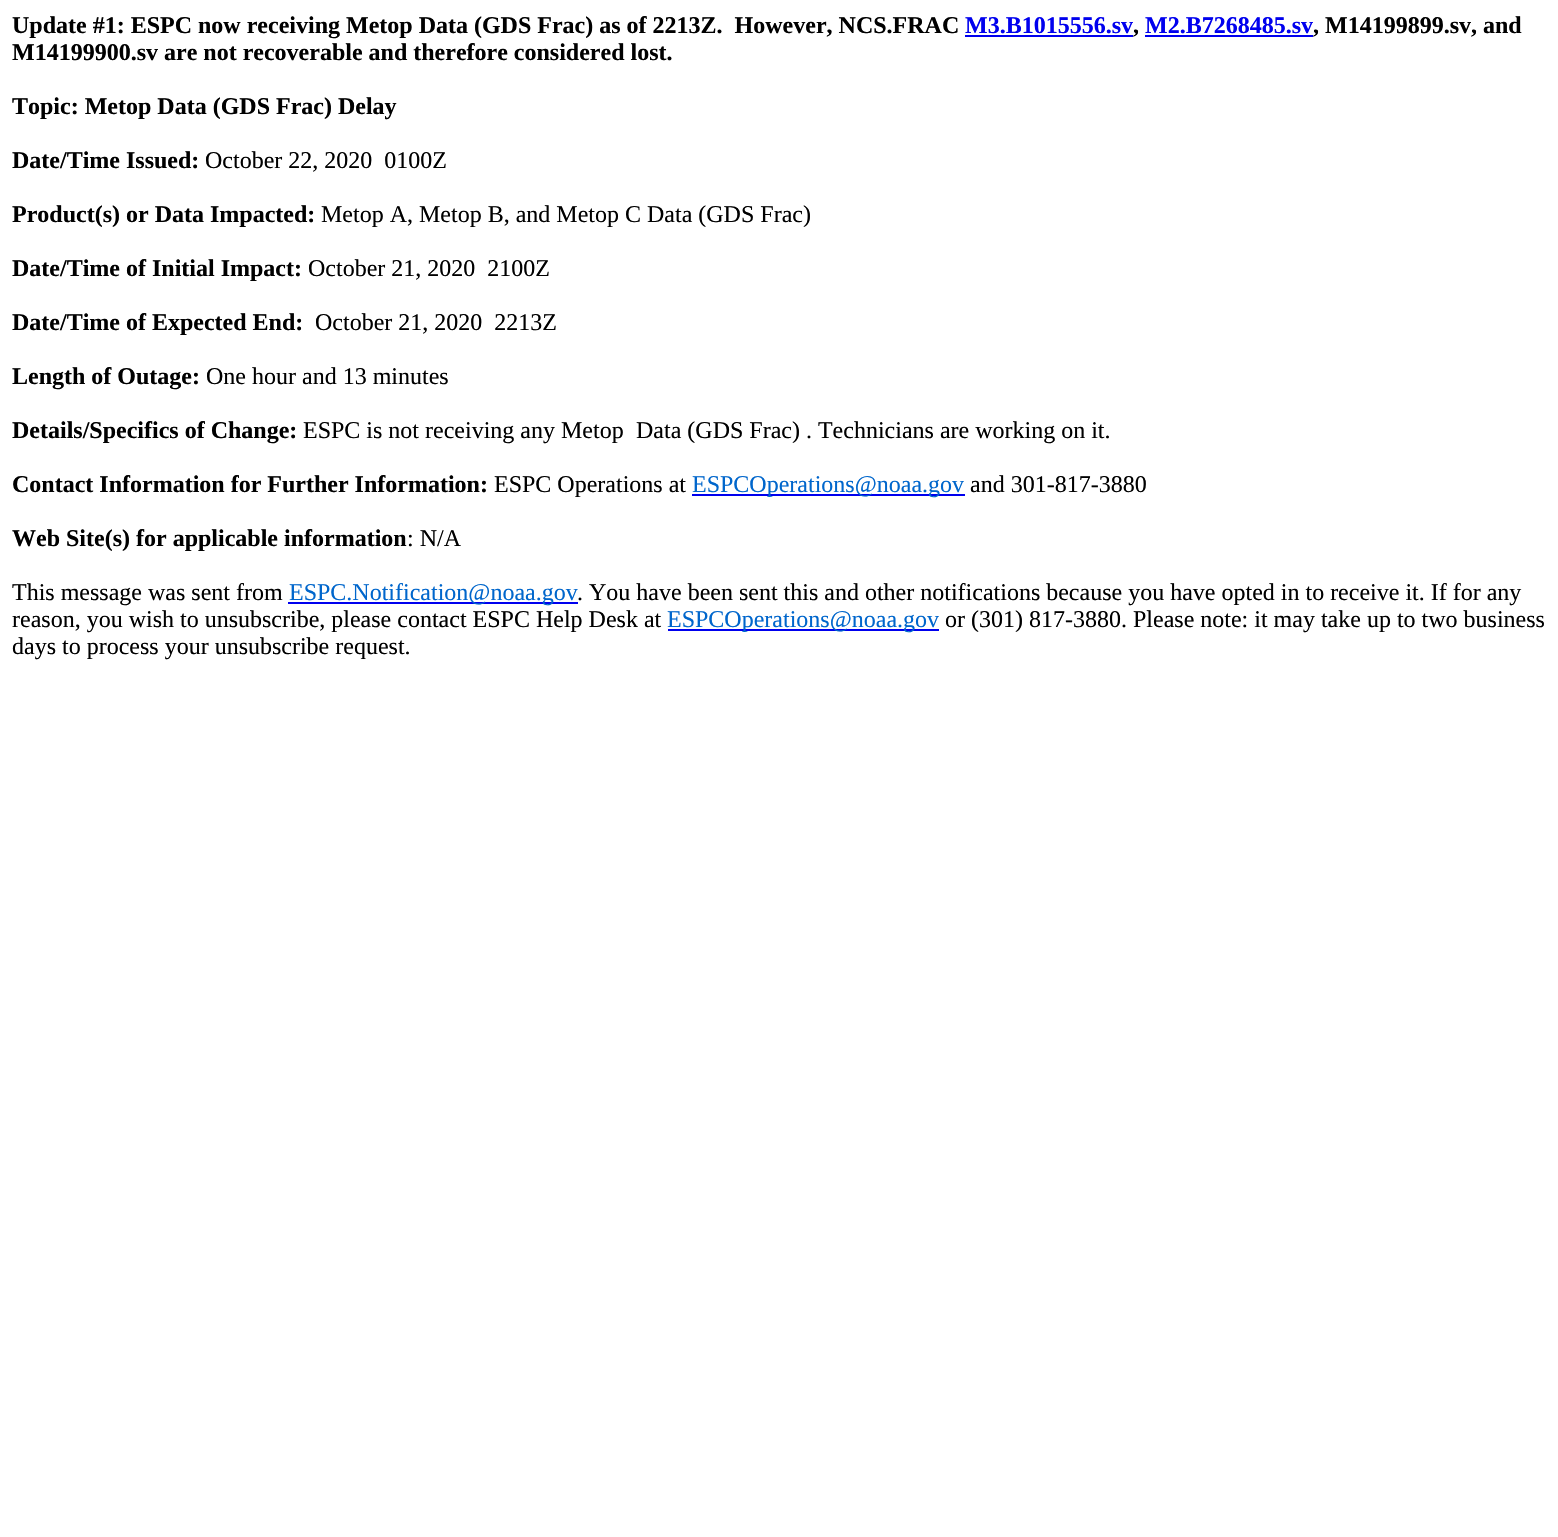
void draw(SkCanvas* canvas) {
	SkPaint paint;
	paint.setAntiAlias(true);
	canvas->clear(0xffffffff);
	SkFont f1(fontMgr->matchFamilyStyle("Liberation Serif", SkFontStyle::Bold()), 24);
	f1.setSubpixel(true);
	paint.setColor(0xff000000);
	canvas->drawString("Update #1: ESPC now receiving Metop Data (GDS Frac) as of 2213Z.  However, NCS.FRAC", 12, 33, f1, paint);
	paint.setColor(0xff0000ee);
	canvas->drawString("M3.B1015556.sv", 965, 33, f1, paint);
	paint.setColor(0xff000000);
	canvas->drawString(",", 1133, 33, f1, paint);
	paint.setColor(0xff0000ee);
	canvas->drawRect(SkRect::MakeXYWH(965, 35, 168, 2), paint);
	canvas->drawRect(SkRect::MakeXYWH(1145, 35, 168, 2), paint);
	canvas->drawString("M2.B7268485.sv", 1145, 33, f1, paint);
	paint.setColor(0xff000000);
	canvas->drawString(", M14199899.sv, and", 1313, 33, f1, paint);
	canvas->drawString("M14199900.sv are not recoverable and therefore considered lost.", 12, 60, f1, paint);
	canvas->drawString("Topic: Metop Data (GDS Frac) Delay", 12, 114, f1, paint);
	canvas->drawString("Date/Time Issued:", 12, 168, f1, paint);
	SkFont f2(fontMgr->matchFamilyStyle("Liberation Serif", SkFontStyle::Normal()), 24);
	f2.setSubpixel(true);
	canvas->drawString("October 22, 2020  0100Z", 205, 168, f2, paint);
	canvas->drawString("Product(s) or Data Impacted:", 12, 222, f1, paint);
	canvas->drawString("Metop A, Metop B, and Metop C Data (GDS Frac)", 321, 222, f2, paint);
	canvas->drawString("Date/Time of Initial Impact:", 12, 276, f1, paint);
	canvas->drawString("October 21, 2020  2100Z", 308, 276, f2, paint);
	canvas->drawString("Date/Time of Expected End:", 12, 330, f1, paint);
	canvas->drawString("October 21, 2020  2213Z", 315, 330, f2, paint);
	canvas->drawString("Length of Outage:", 12, 384, f1, paint);
	canvas->drawString("One hour and 13 minutes", 206, 384, f2, paint);
	canvas->drawString("Details/Specifics of Change:", 12, 438, f1, paint);
	canvas->drawString("ESPC is not receiving any Metop", 303, 438, f2, paint);
	canvas->drawString("Data (GDS Frac) . Technicians are working on it.", 636, 438, f2, paint);
	canvas->drawString("Contact Information for Further Information:", 12, 492, f1, paint);
	canvas->drawString("ESPC Operations at", 494, 492, f2, paint);
	paint.setColor(0xff0000ee);
	canvas->drawRect(SkRect::MakeXYWH(692, 494, 273, 2), paint);
	paint.setColor(0xff0066cc);
	canvas->drawString("ESPCOperations@noaa.gov", 692, 492, f2, paint);
	paint.setColor(0xff000000);
	canvas->drawString("and 301-817-3880", 970, 492, f2, paint);
	canvas->drawString("Web Site(s) for applicable information", 12, 546, f1, paint);
	canvas->drawString(": N/A", 407, 546, f2, paint);
	canvas->drawString("This message was sent from", 12, 600, f2, paint);
	paint.setColor(0xff0000ee);
	canvas->drawRect(SkRect::MakeXYWH(288, 602, 290, 2), paint);
	paint.setColor(0xff0066cc);
	canvas->drawString("ESPC.Notification@noaa.gov", 289, 600, f2, paint);
	paint.setColor(0xff000000);
	canvas->drawString(". You have been sent this and other notifications because you have opted in to receive it. If for any", 577, 600, f2, paint);
	canvas->drawString("reason, you wish to unsubscribe, please contact ESPC Help Desk at", 12, 627, f2, paint);
	paint.setColor(0xff0000ee);
	canvas->drawRect(SkRect::MakeXYWH(668, 629, 271, 2), paint);
	paint.setColor(0xff0066cc);
	canvas->drawString("ESPCOperations@noaa.gov", 667, 627, f2, paint);
	paint.setColor(0xff000000);
	canvas->drawString("or (301) 817-3880. Please note: it may take up to two business", 945, 627, f2, paint);
	canvas->drawString("days to process your unsubscribe request.", 12, 654, f2, paint);
}
